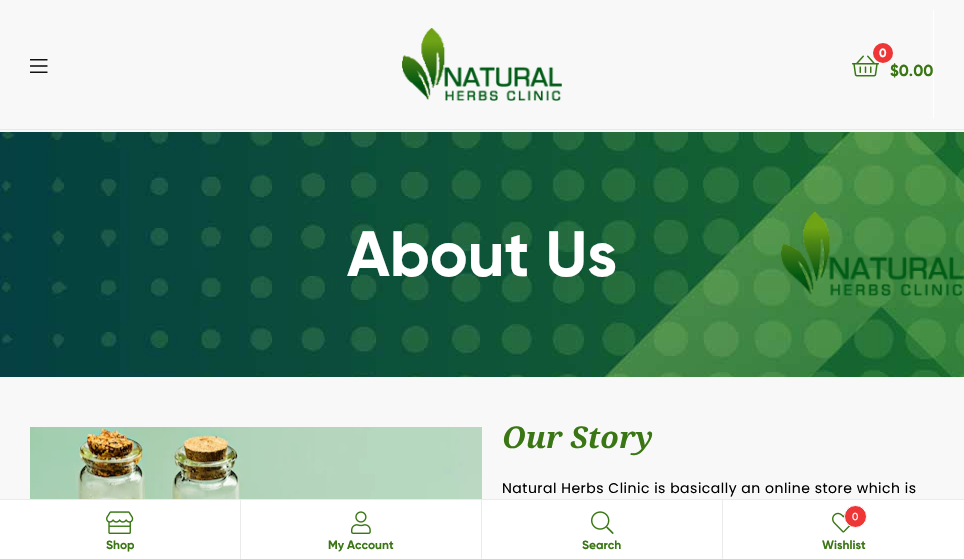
void draw(SkCanvas* canvas) {
	SkPaint paint;
	paint.setAntiAlias(true);
	auto spacedText = [&](const char* s, float x, float y, const SkFont& font, const SkPaint& ink, float letter, float word) {
		std::vector<SkGlyphID> glyphs(font.countText(s, strlen(s), SkTextEncoding::kUTF8));
		std::vector<float> xs(glyphs.size());
		font.textToGlyphs(s, strlen(s), SkTextEncoding::kUTF8, glyphs);
		font.getXPos(glyphs, xs, x);
		float extra = 0;
		for (size_t i = 0; i < glyphs.size(); i++) {
			xs[i] += extra;
			extra += letter + word * (glyphs[i] == font.unicharToGlyph(' '));
		}
		canvas->drawTextBlob(SkTextBlob::MakeFromPosHGlyphs(glyphs, xs, y, font), 0, 0, ink);
	};
	canvas->clear(0xfff8f8f8);
	paint.setColor(0xffe9e9e9);
	canvas->drawRect(SkRect::MakeXYWH(0, 129, 964, 1), paint);
	paint.setColor(0xffffffff);
	canvas->drawRect(SkRect::MakeXYWH(933, 10, 1, 109), paint);
	canvas->drawImageRect(SkImages::DeferredFromEncodedData(SkData::MakeFromFileName("img1.png")), SkRect::MakeXYWH(30, 59, 18, 14), SkSamplingOptions());
	canvas->drawImageRect(SkImages::DeferredFromEncodedData(SkData::MakeFromFileName("img2.png")), SkRect::MakeXYWH(402, 28, 160, 73), SkSamplingOptions());
	canvas->drawImageRect(SkImages::DeferredFromEncodedData(SkData::MakeFromFileName("img3.png")), SkRect::MakeXYWH(852, 55, 27, 22), SkSamplingOptions());
	paint.setColor(0xffef3636);
	canvas->drawCircle(883, 53, 10, paint);
	SkFont f1(fontMgr->matchFamilyStyle("Gilroy", SkFontStyle::Bold()), 12);
	f1.setSubpixel(true);
	paint.setColor(0xffffffff);
	canvas->drawString("0", 879, 57, f1, paint);
	SkFont f2(fontMgr->matchFamilyStyle("Gilroy", SkFontStyle::Bold()), 16);
	f2.setSubpixel(true);
	paint.setColor(0xff3a7714);
	canvas->drawString("$0.00", 890, 76, f2, paint);
	canvas->drawImageRect(SkImages::DeferredFromEncodedData(SkData::MakeFromFileName("img4.png")), SkRect::MakeXYWH(0, 132, 964, 245), SkSamplingOptions());
	SkFont f3(fontMgr->matchFamilyStyle("Gilroy", SkFontStyle::Bold()), 64);
	f3.setSubpixel(true);
	paint.setColor(0xffffffff);
	canvas->drawString("About Us", 347, 276, f3, paint);
	canvas->drawImageRect(SkImages::DeferredFromEncodedData(SkData::MakeFromFileName("img5.png")), SkRect::MakeXYWH(781, 212, 183, 84), SkSamplingOptions());
	canvas->drawImageRect(SkImages::DeferredFromEncodedData(SkData::MakeFromFileName("img6.png")), SkRect::MakeXYWH(30, 427, 452, 72), SkSamplingOptions());
	SkFont f4(fontMgr->matchFamilyStyle("Noto Serif", SkFontStyle::BoldItalic()), 30);
	f4.setSubpixel(true);
	paint.setColor(0xff3a7714);
	canvas->drawString("Our Story", 502, 448, f4, paint);
	SkFont f5(fontMgr->matchFamilyStyle("Poppins", SkFontStyle::Normal()), 14);
	f5.setSubpixel(true);
	paint.setColor(0xff000000);
	spacedText("Natural Herbs Clinic is basically an online store which is", 502, 493, f5, paint, 0.5, 0);
	paint.setColor(0xffebebeb);
	canvas->drawRect(SkRect::MakeXYWH(0, 499, 964, 1), paint);
	paint.setColor(0xffffffff);
	canvas->drawRect(SkRect::MakeXYWH(0, 500, 240, 59), paint);
	paint.setColor(0xffebebeb);
	canvas->drawRect(SkRect::MakeXYWH(240, 500, 1, 59), paint);
	canvas->drawImageRect(SkImages::DeferredFromEncodedData(SkData::MakeFromFileName("img7.png")), SkRect::MakeXYWH(106, 511, 28, 23), SkSamplingOptions());
	paint.setColor(0xff3a7714);
	canvas->drawString("Shop", 106, 549, f1, paint);
	paint.setColor(0xffffffff);
	canvas->drawRect(SkRect::MakeXYWH(241, 500, 240, 59), paint);
	paint.setColor(0xffebebeb);
	canvas->drawRect(SkRect::MakeXYWH(481, 500, 1, 59), paint);
	canvas->drawImageRect(SkImages::DeferredFromEncodedData(SkData::MakeFromFileName("img8.png")), SkRect::MakeXYWH(351, 511, 20, 23), SkSamplingOptions());
	paint.setColor(0xff3a7714);
	canvas->drawString("My Account", 328, 549, f1, paint);
	paint.setColor(0xffffffff);
	canvas->drawRect(SkRect::MakeXYWH(482, 500, 240, 59), paint);
	paint.setColor(0xffebebeb);
	canvas->drawRect(SkRect::MakeXYWH(722, 500, 1, 59), paint);
	canvas->drawImageRect(SkImages::DeferredFromEncodedData(SkData::MakeFromFileName("img9.png")), SkRect::MakeXYWH(591, 511, 23, 23), SkSamplingOptions());
	paint.setColor(0xff3a7714);
	canvas->drawString("Search", 582, 549, f1, paint);
	paint.setColor(0xffffffff);
	canvas->drawRect(SkRect::MakeXYWH(723, 500, 241, 59), paint);
	canvas->drawImageRect(SkImages::DeferredFromEncodedData(SkData::MakeFromFileName("img10.png")), SkRect::MakeXYWH(832, 512, 19, 21), SkSamplingOptions());
	paint.setColor(0xffef3636);
	canvas->drawCircle(855.5, 516.5, 11, paint);
	paint.setStroke(true);
	paint.setStrokeWidth(1);
	paint.setColor(0xffffffff);
	canvas->drawCircle(855.5, 516.5, 11, paint);
	SkFont f6(fontMgr->matchFamilyStyle("Gilroy", SkFontStyle(500, SkFontStyle::kNormal_Width, SkFontStyle::kUpright_Slant)), 10);
	f6.setSubpixel(true);
	paint.setStroke(false);
	canvas->drawString("0", 852, 520, f6, paint);
	paint.setColor(0xff3a7714);
	canvas->drawString("Wishlist", 822, 549, f1, paint);
}
